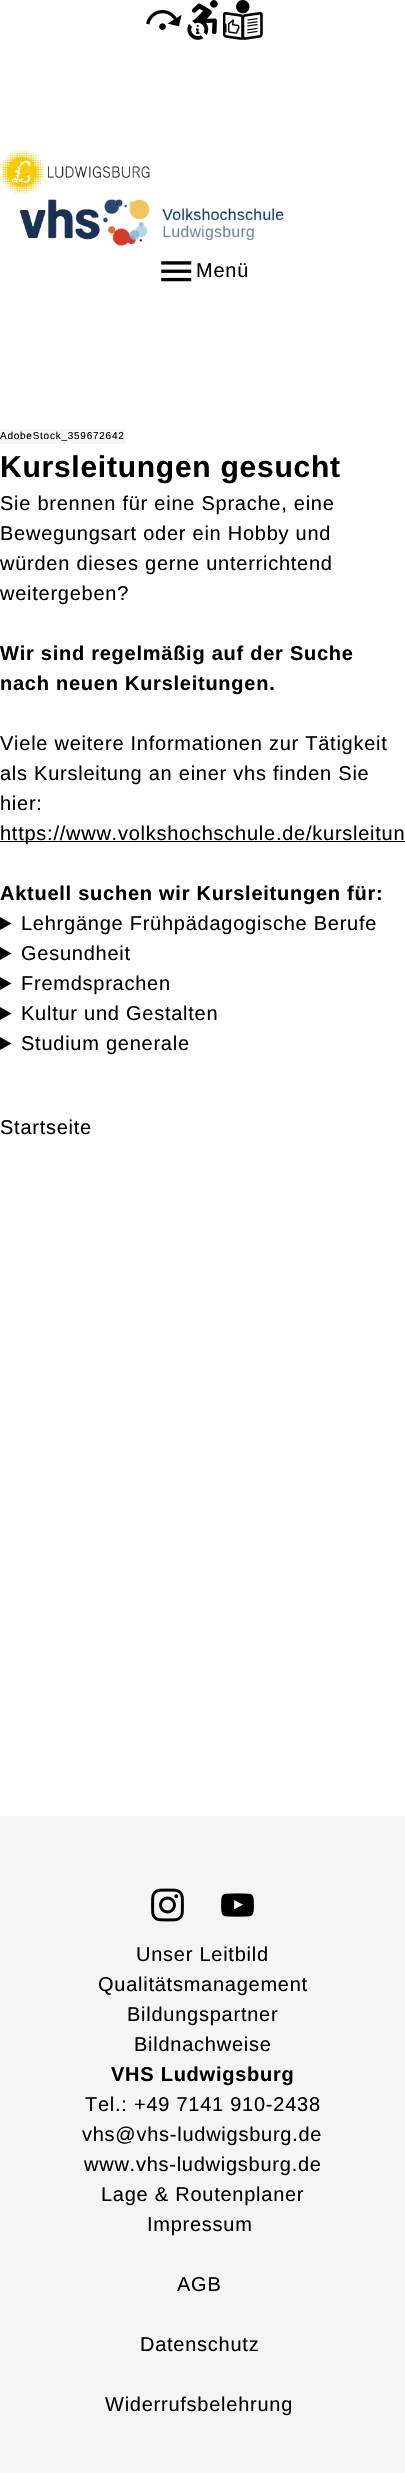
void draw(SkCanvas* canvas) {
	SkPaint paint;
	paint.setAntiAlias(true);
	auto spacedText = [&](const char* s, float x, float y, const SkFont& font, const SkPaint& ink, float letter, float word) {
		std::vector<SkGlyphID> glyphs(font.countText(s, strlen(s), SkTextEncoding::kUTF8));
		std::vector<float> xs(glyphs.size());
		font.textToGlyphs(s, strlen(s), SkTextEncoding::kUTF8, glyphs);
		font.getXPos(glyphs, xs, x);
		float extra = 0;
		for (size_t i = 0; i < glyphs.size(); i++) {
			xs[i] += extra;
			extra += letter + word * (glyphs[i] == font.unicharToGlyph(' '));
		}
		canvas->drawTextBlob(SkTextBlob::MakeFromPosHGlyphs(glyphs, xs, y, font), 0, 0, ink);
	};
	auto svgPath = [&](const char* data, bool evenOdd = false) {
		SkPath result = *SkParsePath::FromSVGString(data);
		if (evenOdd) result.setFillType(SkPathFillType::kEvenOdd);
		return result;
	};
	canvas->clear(0xffffffff);
	canvas->drawImageRect(SkImages::DeferredFromEncodedData(SkData::MakeFromFileName("img1.png")), SkRect::MakeXYWH(146, 10, 36, 20), SkSamplingOptions());
	canvas->drawImageRect(SkImages::DeferredFromEncodedData(SkData::MakeFromFileName("img2.png")), SkRect::MakeXYWH(187, 0, 31, 40), SkSamplingOptions());
	canvas->drawImageRect(SkImages::DeferredFromEncodedData(SkData::MakeFromFileName("img3.png")), SkRect::MakeXYWH(223, 0, 40, 40), SkSamplingOptions());
	canvas->drawImageRect(SkImages::DeferredFromEncodedData(SkData::MakeFromFileName("img4.png")), SkRect::MakeXYWH(0, 150, 284, 96), SkSamplingOptions());
	canvas->drawImageRect(SkImages::DeferredFromEncodedData(SkData::MakeFromFileName("img5.png")), SkRect::MakeXYWH(161, 261, 31, 21), SkSamplingOptions());
	SkFont f1(fontMgr->matchFamilyStyle("Liberation Sans", SkFontStyle::Normal()), 20);
	f1.setSubpixel(true);
	paint.setColor(0xff000000);
	spacedText("Menü", 196, 277, f1, paint, 0.75, 0);
	paint.setColor(0xfff5f5f5);
	canvas->drawRect(SkRect::MakeXYWH(0, 429, 125, 15), paint);
	SkFont f2(fontMgr->matchFamilyStyle("Liberation Sans", SkFontStyle::Normal()), 10);
	f2.setSubpixel(true);
	paint.setColor(0xff000000);
	spacedText("AdobeStock_359672642", 0, 439, f2, paint, 0.75, 0);
	SkFont f3(fontMgr->matchFamilyStyle("Liberation Sans", SkFontStyle::Bold()), 30);
	f3.setSubpixel(true);
	spacedText("Kursleitungen gesucht", 0, 477, f3, paint, 0.75, 0);
	spacedText("Sie brennen für eine Sprache, eine", 0, 510, f1, paint, 0.75, 0);
	spacedText("Bewegungsart oder ein Hobby und", 0, 540, f1, paint, 0.75, 0);
	spacedText("würden dieses gerne unterrichtend", 0, 570, f1, paint, 0.75, 0);
	spacedText("weitergeben?", 0, 600, f1, paint, 0.75, 0);
	SkFont f4(fontMgr->matchFamilyStyle("Liberation Sans", SkFontStyle::Bold()), 20);
	f4.setSubpixel(true);
	spacedText("Wir sind regelmäßig auf der Suche", 0, 660, f4, paint, 0.75, 0);
	spacedText("nach neuen Kursleitungen.", 0, 690, f4, paint, 0.75, 0);
	spacedText("Viele weitere Informationen zur Tätigkeit", 0, 750, f1, paint, 0.75, 0);
	spacedText("als Kursleitung an einer vhs finden Sie", 0, 780, f1, paint, 0.75, 0);
	spacedText("hier:", 0, 810, f1, paint, 0.75, 0);
	canvas->drawRect(SkRect::MakeXYWH(0, 841, 405, 1), paint);
	spacedText("https://www.volkshochschule.de/kursleitun", 0, 840, f1, paint, 0.75, 0);
	spacedText("Aktuell suchen wir Kursleitungen für:", 0, 900, f4, paint, 0.75, 0);
	canvas->drawPath(svgPath("M0 917L11.5 923.5L0 930Z"), paint);
	spacedText("Lehrgänge Frühpädagogische Berufe", 21, 930, f1, paint, 0.75, 0);
	canvas->drawPath(svgPath("M0 947L11.5 953.5L0 960Z"), paint);
	spacedText("Gesundheit", 21, 960, f1, paint, 0.75, 0);
	canvas->drawPath(svgPath("M0 977L11.5 983.5L0 990Z"), paint);
	spacedText("Fremdsprachen", 21, 990, f1, paint, 0.75, 0);
	canvas->drawPath(svgPath("M0 1007L11.5 1013.5L0 1020Z"), paint);
	spacedText("Kultur und Gestalten", 21, 1020, f1, paint, 0.75, 0);
	canvas->drawPath(svgPath("M0 1037L11.5 1043.5L0 1050Z"), paint);
	spacedText("Studium generale", 21, 1050, f1, paint, 0.75, 0);
	spacedText("Startseite", 0, 1134, f1, paint, 0.75, 0);
	paint.setColor(0xfff5f5f5);
	canvas->drawRect(SkRect::MakeXYWH(0, 1816, 405, 657), paint);
	canvas->drawImageRect(SkImages::DeferredFromEncodedData(SkData::MakeFromFileName("img6.png")), SkRect::MakeXYWH(151, 1888, 33, 34), SkSamplingOptions());
	canvas->drawImageRect(SkImages::DeferredFromEncodedData(SkData::MakeFromFileName("img7.png")), SkRect::MakeXYWH(221, 1893, 33, 24), SkSamplingOptions());
	paint.setColor(0xff000000);
	spacedText("Unser Leitbild", 136, 1961, f1, paint, 0.75, 0);
	spacedText("Qualitätsmanagement", 98, 1991, f1, paint, 0.75, 0);
	spacedText("Bildungspartner", 127, 2021, f1, paint, 0.75, 0);
	spacedText("Bildnachweise", 134, 2051, f1, paint, 0.75, 0);
	spacedText("VHS Ludwigsburg", 111, 2081, f4, paint, 0.75, 0);
	spacedText("Tel.: +49 7141 910-2438", 85, 2111, f1, paint, 0.75, 0);
	spacedText("vhs@vhs-ludwigsburg.de", 82, 2141, f1, paint, 0.75, 0);
	spacedText("www.vhs-ludwigsburg.de", 84, 2171, f1, paint, 0.75, 0);
	spacedText("Lage & Routenplaner", 101, 2201, f1, paint, 0.75, 0);
	spacedText("Impressum", 147, 2231, f1, paint, 0.75, 0);
	spacedText("AGB", 177, 2291, f1, paint, 0.75, 0);
	spacedText("Datenschutz", 140, 2351, f1, paint, 0.75, 0);
	spacedText("Widerrufsbelehrung", 105, 2411, f1, paint, 0.75, 0);
}
